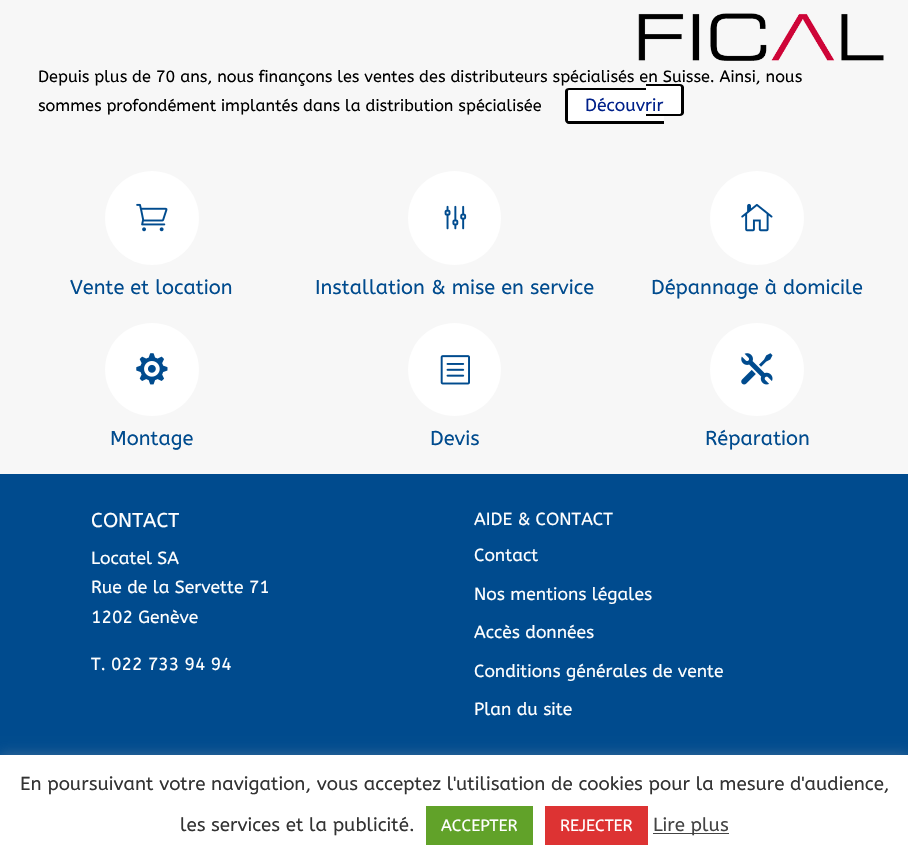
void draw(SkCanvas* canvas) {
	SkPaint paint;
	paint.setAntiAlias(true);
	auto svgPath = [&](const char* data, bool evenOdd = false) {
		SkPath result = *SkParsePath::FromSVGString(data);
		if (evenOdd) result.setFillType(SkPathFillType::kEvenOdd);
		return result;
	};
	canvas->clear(0xfff7f7f7);
	canvas->drawImageRect(SkImages::DeferredFromEncodedData(SkData::MakeFromFileName("img1.png")), SkRect::MakeXYWH(638, 13, 246, 48), SkSamplingOptions());
	SkFont f1(fontMgr->matchFamilyStyle("ABeeZee", SkFontStyle::Normal()), 16.25);
	f1.setSubpixel(true);
	paint.setColor(0xff000000);
	canvas->drawString("Depuis plus de 70 ans, nous finançons les ventes des distributeurs spécialisés en Suisse. Ainsi, nous", 38, 82, f1, paint);
	canvas->drawString("sommes profondément implantés dans la distribution spécialisée", 38, 111, f1, paint);
	paint.setColor(0xffffffff);
	canvas->drawPath(svgPath("M569 88H664V124H569C567 124 565 122 565 120V92C565 90 567 88 569 88Z"), paint);
	paint.setColor(0xff000000);
	canvas->drawPath(svgPath("M569 88H664V124H569C567 124 565 122 565 120V91C565 89 567 88 569 88ZM569 90H664V121H569C568 121 568 121 568 120V91C568 91 568 90 569 90Z", true), paint);
	paint.setColor(0xffffffff);
	canvas->drawPath(svgPath("M646 84H680C682 84 684 86 684 88V112C684 114 682 116 680 116H646Z"), paint);
	paint.setColor(0xff000000);
	canvas->drawPath(svgPath("M646 84H680C682 84 684 85.5 684 87.5V112.5C684 114.5 682 116 680 116H646ZM646 86H680C680.5 86 681 87 681 87.5V112.5C681 113 680.5 114 680 114H646Z", true), paint);
	SkFont f2(fontMgr->matchFamilyStyle("ABeeZee", SkFontStyle::Normal()), 17.5);
	f2.setSubpixel(true);
	paint.setColor(0xff00208a);
	canvas->drawString("Découvrir", 585, 111, f2, paint);
	paint.setColor(0xffffffff);
	canvas->drawCircle(152, 218, 47, paint);
	canvas->drawImageRect(SkImages::DeferredFromEncodedData(SkData::MakeFromFileName("img2.png")), SkRect::MakeXYWH(136, 203, 32, 29), SkSamplingOptions());
	SkFont f3(fontMgr->matchFamilyStyle("ABeeZee", SkFontStyle::Normal()), 20);
	f3.setSubpixel(true);
	paint.setColor(0xff004b8e);
	canvas->drawString("Vente et location", 70, 294, f3, paint);
	paint.setColor(0xffffffff);
	canvas->drawRoundRect(SkRect::MakeXYWH(408, 171, 93, 94), 46.5, 46.5, paint);
	canvas->drawImageRect(SkImages::DeferredFromEncodedData(SkData::MakeFromFileName("img3.png")), SkRect::MakeXYWH(444, 205, 23, 25), SkSamplingOptions());
	paint.setColor(0xff004b8e);
	canvas->drawString("Installation & mise en service", 315, 294, f3, paint);
	paint.setColor(0xffffffff);
	canvas->drawCircle(757, 218, 47, paint);
	canvas->drawImageRect(SkImages::DeferredFromEncodedData(SkData::MakeFromFileName("img4.png")), SkRect::MakeXYWH(741, 203, 32, 29), SkSamplingOptions());
	paint.setColor(0xff004b8e);
	canvas->drawString("Dépannage à domicile", 651, 294, f3, paint);
	paint.setColor(0xffffffff);
	canvas->drawRoundRect(SkRect::MakeXYWH(105, 323, 94, 93), 46.5, 46.5, paint);
	canvas->drawImageRect(SkImages::DeferredFromEncodedData(SkData::MakeFromFileName("img5.png")), SkRect::MakeXYWH(136, 353, 32, 32), SkSamplingOptions());
	paint.setColor(0xff004b8e);
	canvas->drawString("Montage", 110, 445, f3, paint);
	paint.setColor(0xffffffff);
	canvas->drawCircle(454.5, 369.5, 46.5, paint);
	canvas->drawImageRect(SkImages::DeferredFromEncodedData(SkData::MakeFromFileName("img6.png")), SkRect::MakeXYWH(440, 355, 30, 30), SkSamplingOptions());
	paint.setColor(0xff004b8e);
	canvas->drawString("Devis", 430, 445, f3, paint);
	paint.setColor(0xffffffff);
	canvas->drawRoundRect(SkRect::MakeXYWH(710, 323, 94, 93), 46.5, 46.5, paint);
	canvas->drawImageRect(SkImages::DeferredFromEncodedData(SkData::MakeFromFileName("img7.png")), SkRect::MakeXYWH(741, 353, 32, 32), SkSamplingOptions());
	paint.setColor(0xff004b8e);
	canvas->drawString("Réparation", 705, 445, f3, paint);
	canvas->drawRect(SkRect::MakeXYWH(0, 474, 908, 281), paint);
	paint.setColor(0xffffffff);
	canvas->drawString("CONTACT", 91, 527, f3, paint);
	canvas->drawString("Locatel SA", 91, 564, f2, paint);
	canvas->drawString("Rue de la Servette 71", 91, 593, f2, paint);
	canvas->drawString("1202 Genève", 91, 623, f2, paint);
	canvas->drawString("T. 022 733 94 94", 91, 670, f2, paint);
	canvas->drawString("AIDE & CONTACT", 474, 525, f2, paint);
	canvas->drawString("Contact", 474, 561, f2, paint);
	canvas->drawString("Nos mentions légales", 474, 600, f2, paint);
	canvas->drawString("Accès données", 474, 638, f2, paint);
	canvas->drawString("Conditions générales de vente", 474, 677, f2, paint);
	canvas->drawString("Plan du site", 474, 715, f2, paint);
	paint.setColor(0x4dacabab);
	paint.setMaskFilter(SkMaskFilter::MakeBlur(kNormal_SkBlurStyle, 6));
	canvas->drawRect(SkRect::MakeXYWH(0, 754, 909, 105), paint);
	paint.setMaskFilter(nullptr);
	paint.setColor(0xffffffff);
	canvas->drawRect(SkRect::MakeXYWH(0, 755, 908, 104), paint);
	SkFont f4(fontMgr->matchFamilyStyle("ABeeZee", SkFontStyle::Normal()), 18.75);
	f4.setSubpixel(true);
	paint.setColor(0xff333333);
	canvas->drawString("En poursuivant votre navigation, vous acceptez l'utilisation de cookies pour la mesure d'audience,", 20, 790, f4, paint);
	canvas->drawString("les services et la publicité.", 180, 831, f4, paint);
	paint.setColor(0xff61a229);
	canvas->drawRect(SkRect::MakeXYWH(426, 806, 107, 39), paint);
	paint.setColor(0xffffffff);
	canvas->drawString("ACCEPTER", 441, 831, f1, paint);
	paint.setColor(0xffdd3333);
	canvas->drawRect(SkRect::MakeXYWH(545, 806, 103, 39), paint);
	paint.setColor(0xffffffff);
	canvas->drawString("REJECTER", 560, 831, f1, paint);
	paint.setColor(0xff444444);
	canvas->drawRect(SkRect::MakeXYWH(653, 833, 76, 1), paint);
	canvas->drawString("Lire plus", 653, 831, f4, paint);
}
